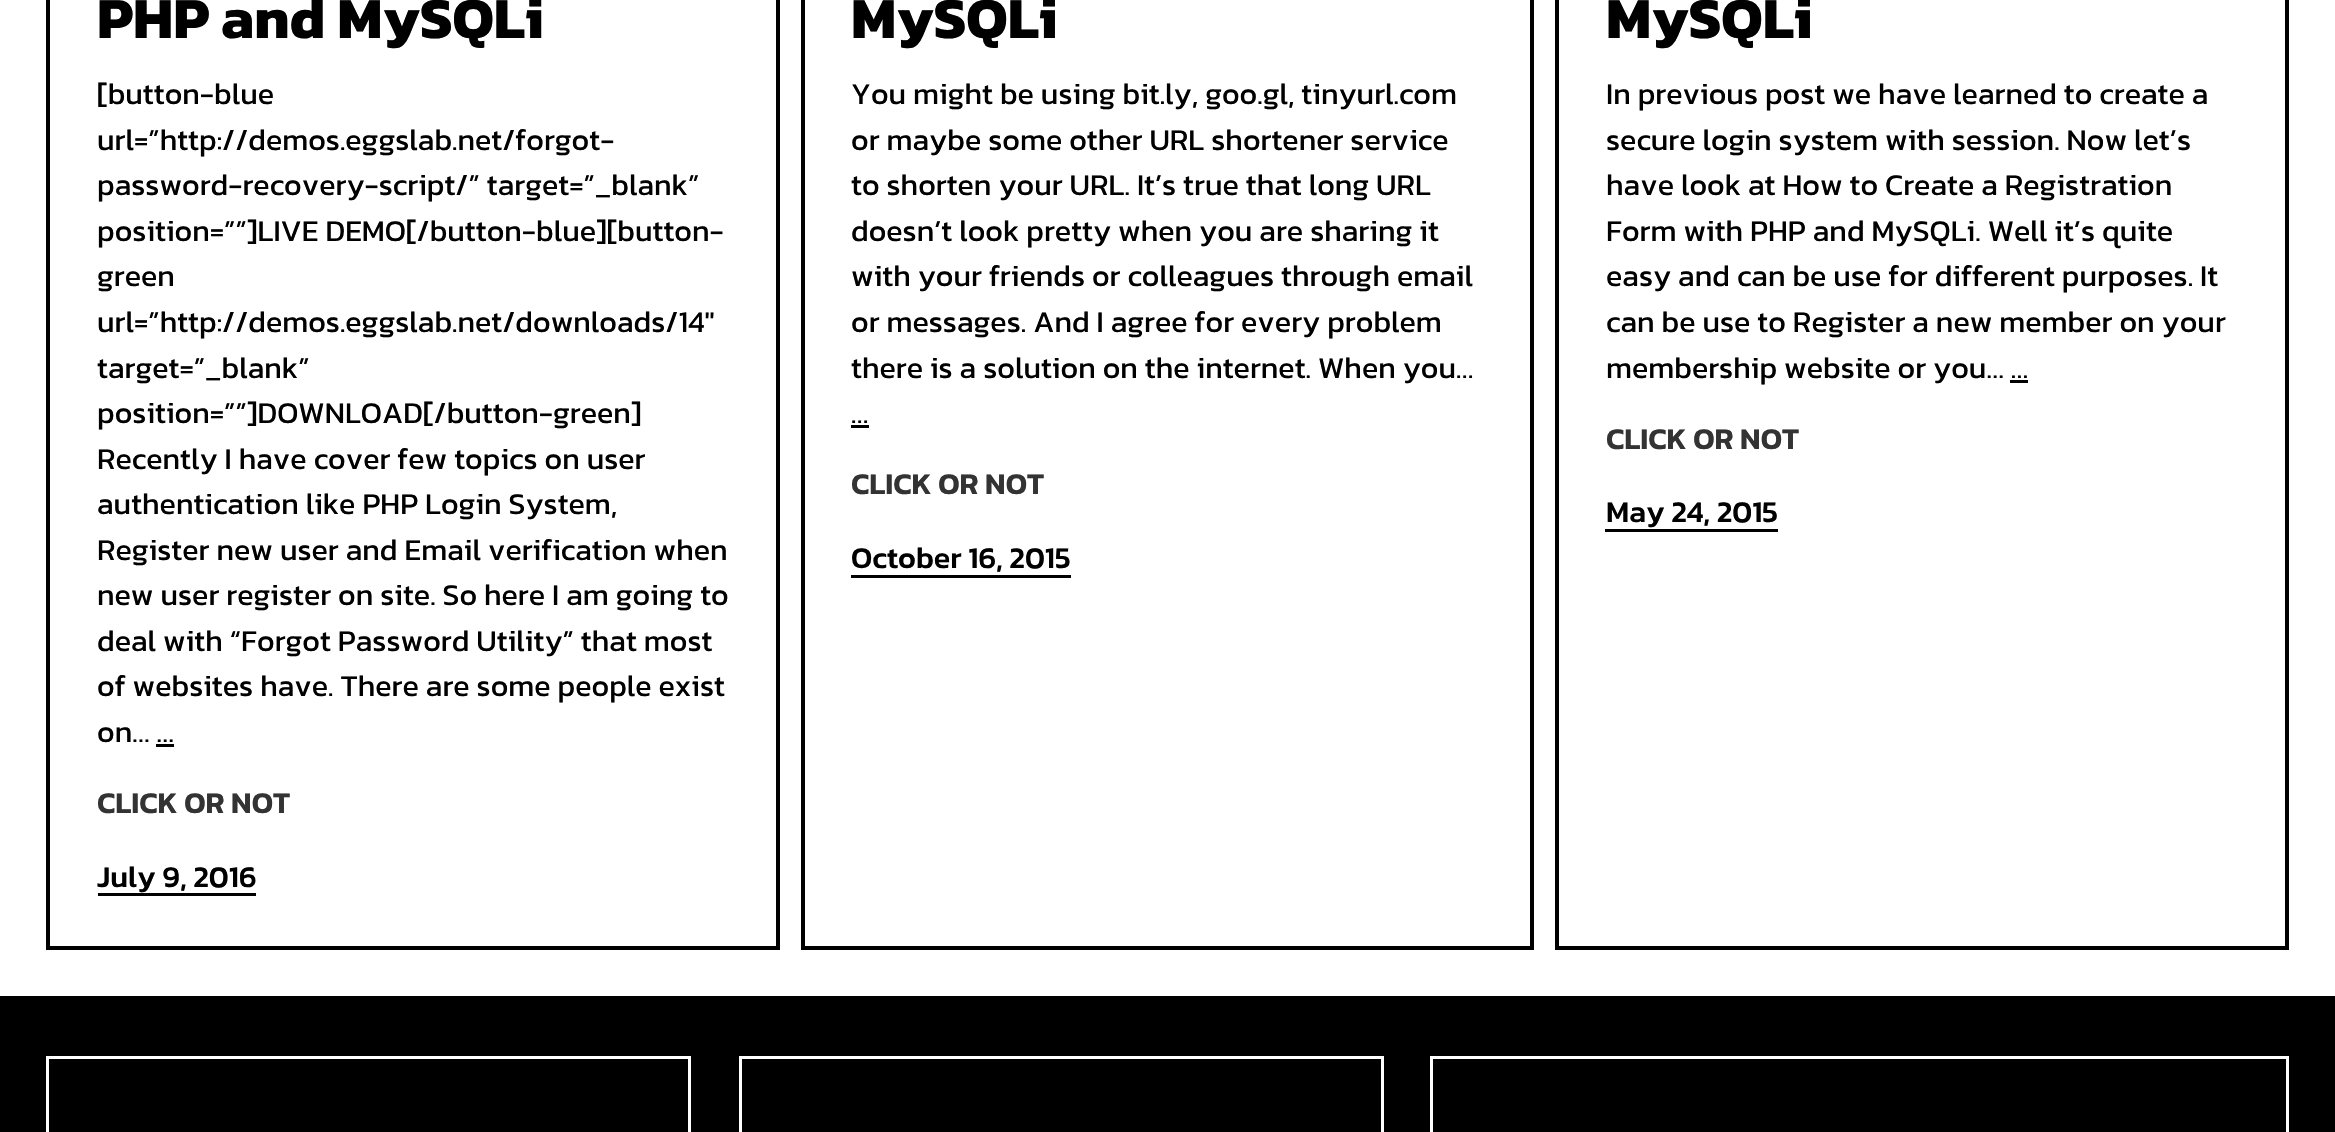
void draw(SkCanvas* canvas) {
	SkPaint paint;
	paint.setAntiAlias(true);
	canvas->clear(0xffffffff);
	paint.setStroke(true);
	paint.setStrokeWidth(4);
	paint.setColor(0xff000000);
	canvas->drawRect(SkRect::MakeXYWH(48, -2, 730, 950), paint);
	SkFont f1(fontMgr->matchFamilyStyle("Kanit", SkFontStyle::Bold()), 58.5);
	f1.setSubpixel(true);
	paint.setStroke(false);
	canvas->drawString("PHP and MySQLi", 97, 38, f1, paint);
	SkFont f2(fontMgr->matchFamilyStyle("Kanit", SkFontStyle::Normal()), 30.35);
	f2.setSubpixel(true);
	canvas->drawString("[button-blue", 97, 104, f2, paint);
	canvas->drawString("url=”http://demos.eggslab.net/forgot-", 97, 150, f2, paint);
	canvas->drawString("password-recovery-script/” target=”_blank”", 97, 195, f2, paint);
	canvas->drawString("position=””]LIVE DEMO[/button-blue][button-", 97, 241, f2, paint);
	canvas->drawString("green", 97, 286, f2, paint);
	canvas->drawString("url=”http://demos.eggslab.net/downloads/14″", 97, 332, f2, paint);
	canvas->drawString("target=”_blank”", 97, 378, f2, paint);
	canvas->drawString("position=””]DOWNLOAD[/button-green]", 97, 423, f2, paint);
	canvas->drawString("Recently I have cover few topics on user", 97, 469, f2, paint);
	canvas->drawString("authentication like PHP Login System,", 97, 514, f2, paint);
	canvas->drawString("Register new user and Email verification when", 97, 560, f2, paint);
	canvas->drawString("new user register on site. So here I am going to", 97, 605, f2, paint);
	canvas->drawString("deal with “Forgot Password Utility” that most", 97, 651, f2, paint);
	canvas->drawString("of websites have. There are some people exist", 97, 696, f2, paint);
	canvas->drawString("on… …", 97, 742, f2, paint);
	canvas->drawRect(SkRect::MakeXYWH(156, 744, 18, 3), paint);
	SkFont f3(fontMgr->matchFamilyStyle("Kanit", SkFontStyle(600, SkFontStyle::kNormal_Width, SkFontStyle::kUpright_Slant)), 30.35);
	f3.setSubpixel(true);
	paint.setColor(0xff333333);
	canvas->drawString("CLICK OR NOT", 97, 813, f3, paint);
	SkFont f4(fontMgr->matchFamilyStyle("Kanit", SkFontStyle(500, SkFontStyle::kNormal_Width, SkFontStyle::kUpright_Slant)), 30.35);
	f4.setSubpixel(true);
	paint.setColor(0xff000000);
	canvas->drawString("July 9, 2016", 97, 887, f4, paint);
	canvas->drawRect(SkRect::MakeXYWH(98, 893, 158, 3), paint);
	paint.setStroke(true);
	canvas->drawRect(SkRect::MakeXYWH(803, -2, 729, 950), paint);
	paint.setStroke(false);
	canvas->drawString("MySQLi", 851, 38, f1, paint);
	canvas->drawString("You might be using bit.ly, goo.gl, tinyurl.com", 851, 104, f2, paint);
	canvas->drawString("or maybe some other URL shortener service", 851, 150, f2, paint);
	canvas->drawString("to shorten your URL. It’s true that long URL", 851, 195, f2, paint);
	canvas->drawString("doesn’t look pretty when you are sharing it", 851, 241, f2, paint);
	canvas->drawString("with your friends or colleagues through email", 851, 286, f2, paint);
	canvas->drawString("or messages. And I agree for every problem", 851, 332, f2, paint);
	canvas->drawString("there is a solution on the internet. When you…", 851, 378, f2, paint);
	canvas->drawString("…", 851, 423, f2, paint);
	canvas->drawRect(SkRect::MakeXYWH(851, 425, 18, 3), paint);
	paint.setColor(0xff333333);
	canvas->drawString("CLICK OR NOT", 851, 494, f3, paint);
	paint.setColor(0xff000000);
	canvas->drawString("October 16, 2015", 851, 568, f4, paint);
	canvas->drawRect(SkRect::MakeXYWH(851, 575, 220, 3), paint);
	paint.setStroke(true);
	canvas->drawRect(SkRect::MakeXYWH(1557, -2, 730, 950), paint);
	paint.setStroke(false);
	canvas->drawString("MySQLi", 1606, 38, f1, paint);
	canvas->drawString("In previous post we have learned to create a", 1606, 104, f2, paint);
	canvas->drawString("secure login system with session. Now let’s", 1606, 150, f2, paint);
	canvas->drawString("have look at How to Create a Registration", 1606, 195, f2, paint);
	canvas->drawString("Form with PHP and MySQLi. Well it’s quite", 1606, 241, f2, paint);
	canvas->drawString("easy and can be use for different purposes. It", 1606, 286, f2, paint);
	canvas->drawString("can be use to Register a new member on your", 1606, 332, f2, paint);
	canvas->drawString("membership website or you… …", 1606, 378, f2, paint);
	canvas->drawRect(SkRect::MakeXYWH(2010, 380, 18, 3), paint);
	paint.setColor(0xff333333);
	canvas->drawString("CLICK OR NOT", 1606, 449, f3, paint);
	paint.setColor(0xff000000);
	canvas->drawString("May 24, 2015", 1606, 522, f4, paint);
	canvas->drawRect(SkRect::MakeXYWH(1605, 529, 173, 3), paint);
	canvas->drawRect(SkRect::MakeXYWH(0, 996, 2335, 136), paint);
	paint.setStroke(true);
	paint.setStrokeWidth(3);
	paint.setColor(0xffffffff);
	canvas->drawRect(SkRect::MakeXYWH(47.5, 1057.5, 642, 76), paint);
	canvas->drawRect(SkRect::MakeXYWH(740.5, 1057.5, 642, 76), paint);
	canvas->drawRect(SkRect::MakeXYWH(1431.5, 1057.5, 856, 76), paint);
}
